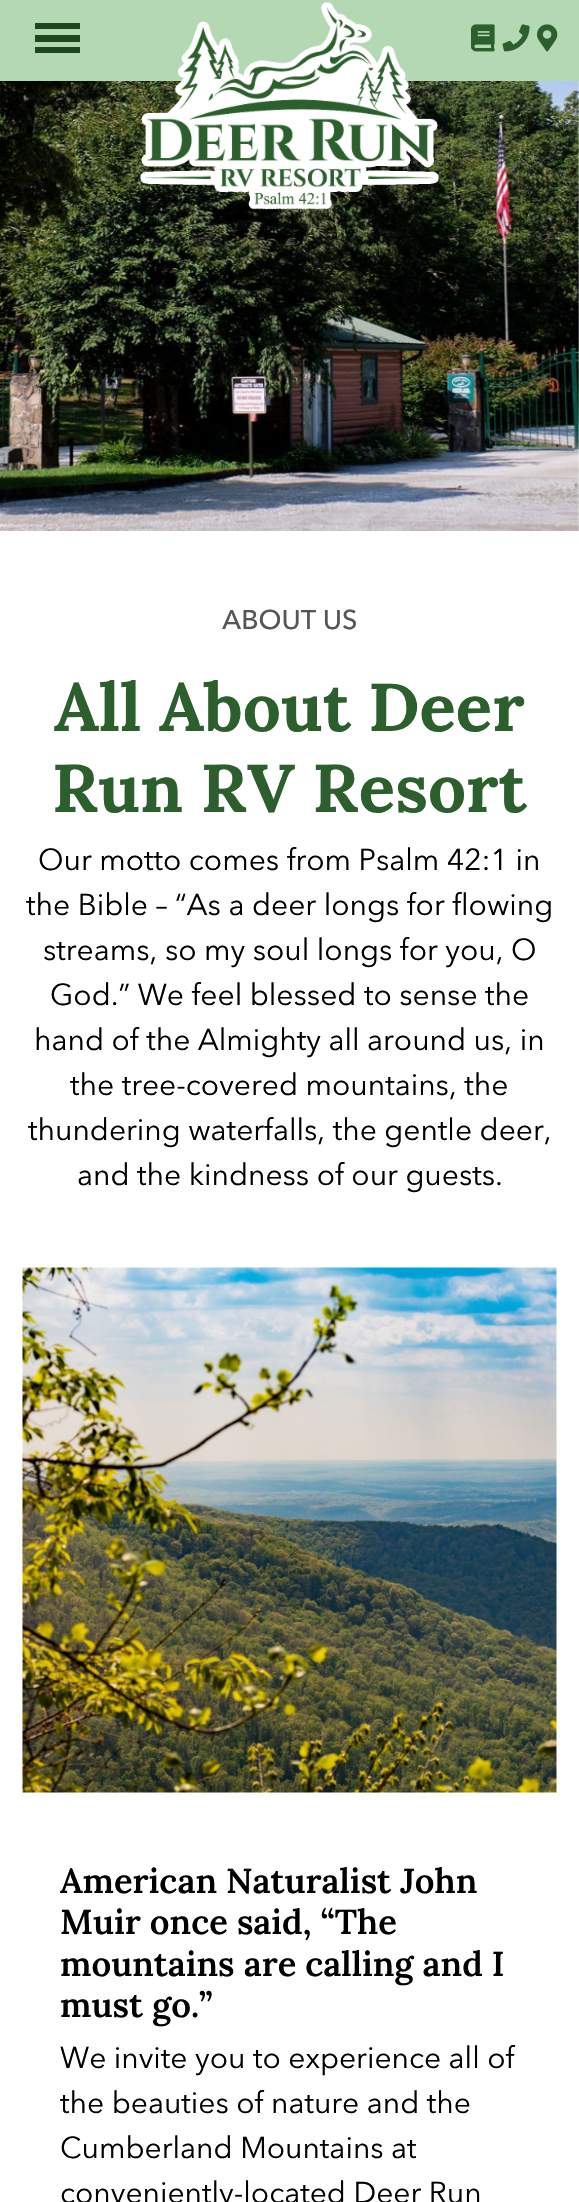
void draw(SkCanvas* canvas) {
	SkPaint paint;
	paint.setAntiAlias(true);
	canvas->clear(0xffffffff);
	paint.setColor(0xffb3d8b3);
	canvas->drawRect(SkRect::MakeXYWH(0, 0, 579, 81), paint);
	paint.setColor(0xff1d471d);
	canvas->drawRect(SkRect::MakeXYWH(35, 35, 45, 7), paint);
	canvas->drawRect(SkRect::MakeXYWH(35, 23, 45, 6), paint);
	canvas->drawRect(SkRect::MakeXYWH(35, 47, 45, 6), paint);
	canvas->drawImageRect(SkImages::DeferredFromEncodedData(SkData::MakeFromFileName("img1.png")), SkRect::MakeXYWH(471, 24, 24, 28), SkSamplingOptions());
	canvas->drawImageRect(SkImages::DeferredFromEncodedData(SkData::MakeFromFileName("img2.png")), SkRect::MakeXYWH(502, 24, 28, 28), SkSamplingOptions());
	canvas->drawImageRect(SkImages::DeferredFromEncodedData(SkData::MakeFromFileName("img3.png")), SkRect::MakeXYWH(537, 24, 21, 28), SkSamplingOptions());
	canvas->drawImageRect(SkImages::DeferredFromEncodedData(SkData::MakeFromFileName("img5.png")), SkRect::MakeXYWH(0, 81, 579, 450), SkSamplingOptions());
	canvas->drawImageRect(SkImages::DeferredFromEncodedData(SkData::MakeFromFileName("img4.png")), SkRect::MakeXYWH(140, 2, 299, 208), SkSamplingOptions());
	SkFont f1(fontMgr->matchFamilyStyle("Avenir Next", SkFontStyle(500, SkFontStyle::kNormal_Width, SkFontStyle::kUpright_Slant)), 27);
	f1.setSubpixel(true);
	paint.setColor(0xff565656);
	canvas->drawString("ABOUT US", 222, 629, f1, paint);
	SkFont f2(fontMgr->matchFamilyStyle("Lora", SkFontStyle::Bold()), 67.5);
	f2.setSubpixel(true);
	paint.setColor(0xff2d5e2e);
	canvas->drawString("All About Deer", 54, 731, f2, paint);
	canvas->drawString("Run RV Resort", 52, 812, f2, paint);
	SkFont f3(fontMgr->matchFamilyStyle("Avenir Next", SkFontStyle::Normal()), 30);
	f3.setSubpixel(true);
	paint.setColor(0xff000000);
	canvas->drawString("Our motto comes from Psalm 42:1 in", 38, 870, f3, paint);
	canvas->drawString("the Bible – “As a deer longs for flowing", 26, 915, f3, paint);
	canvas->drawString("streams, so my soul longs for you, O", 43, 960, f3, paint);
	canvas->drawString("God.” We feel blessed to sense the", 50, 1005, f3, paint);
	canvas->drawString("hand of the Almighty all around us, in", 34, 1050, f3, paint);
	canvas->drawString("the tree-covered mountains, the", 70, 1095, f3, paint);
	canvas->drawString("thundering waterfalls, the gentle deer,", 28, 1140, f3, paint);
	canvas->drawString("and the kindness of our guests.", 77, 1185, f3, paint);
	canvas->drawImageRect(SkImages::DeferredFromEncodedData(SkData::MakeFromFileName("img6.png")), SkRect::MakeXYWH(22, 1267, 535, 526), SkSamplingOptions());
	SkFont f4(fontMgr->matchFamilyStyle("Lora", SkFontStyle(600, SkFontStyle::kNormal_Width, SkFontStyle::kUpright_Slant)), 34.5);
	f4.setSubpixel(true);
	canvas->drawString("American Naturalist John", 60, 1893, f4, paint);
	canvas->drawString("Muir once said, “The", 60, 1934, f4, paint);
	canvas->drawString("mountains are calling and I", 60, 1976, f4, paint);
	canvas->drawString("must go.”", 60, 2017, f4, paint);
	canvas->drawString("We invite you to experience all of", 60, 2068, f3, paint);
	canvas->drawString("the beauties of nature and the", 60, 2113, f3, paint);
	canvas->drawString("Cumberland Mountains at", 60, 2158, f3, paint);
	canvas->drawString("conveniently-located Deer Run", 60, 2203, f3, paint);
}
